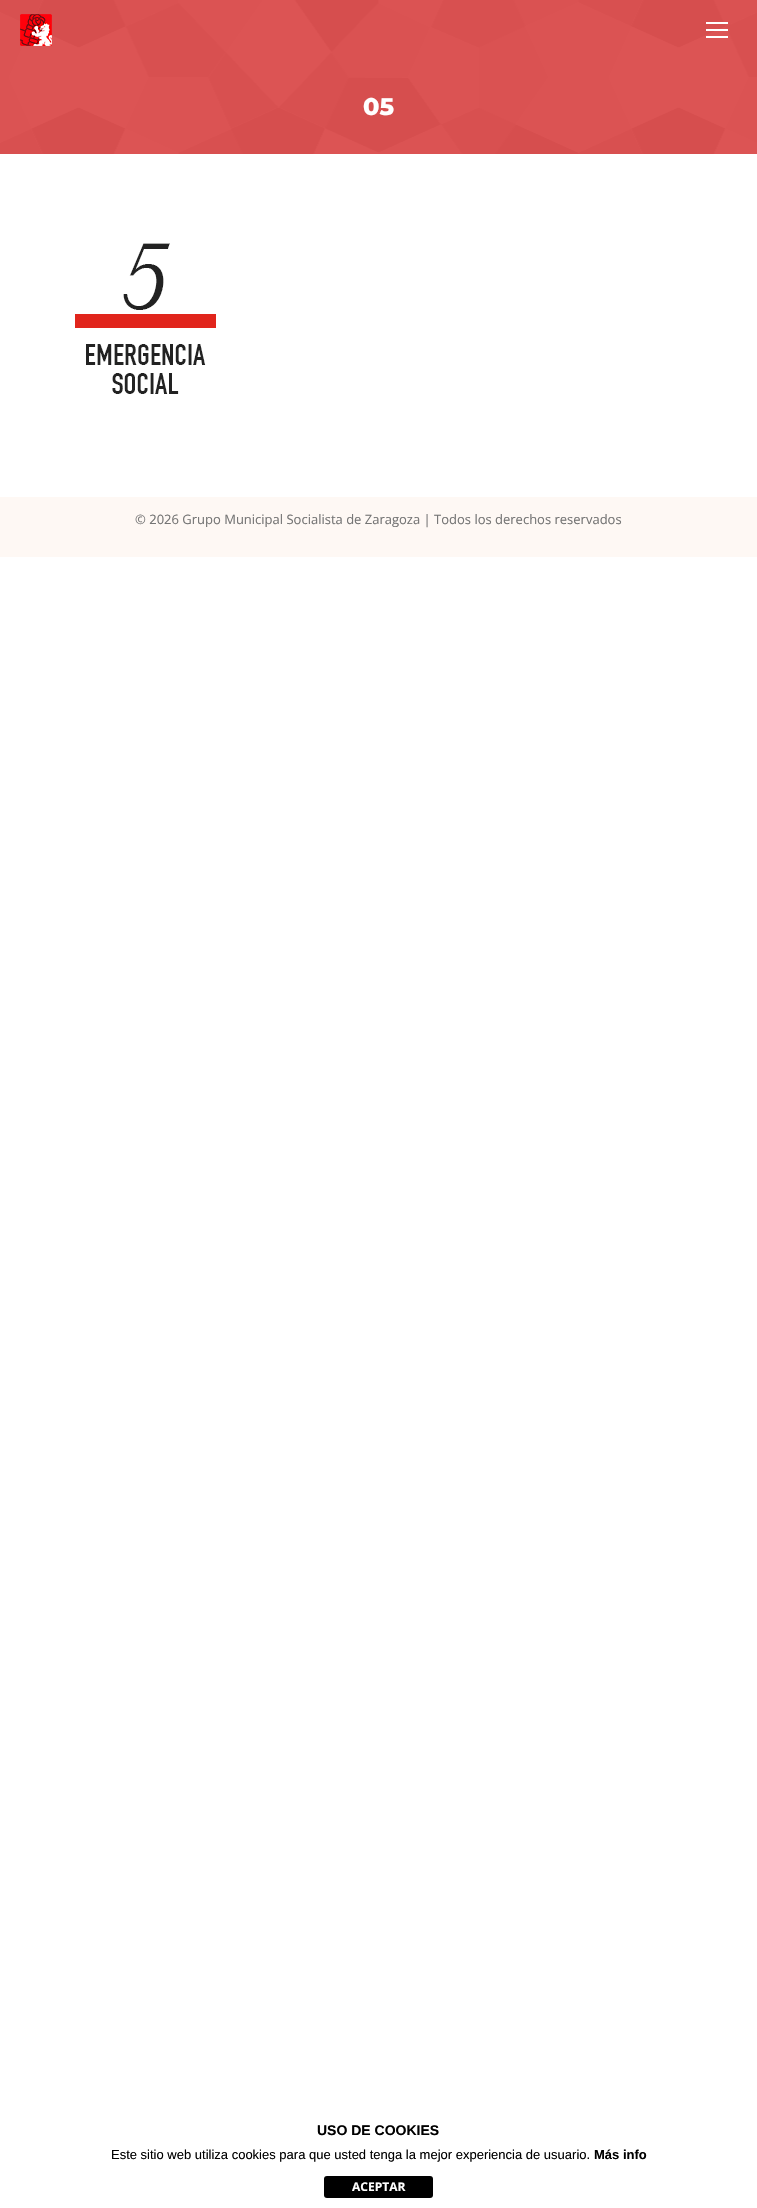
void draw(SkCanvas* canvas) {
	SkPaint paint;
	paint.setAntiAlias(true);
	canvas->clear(0xffffffff);
	paint.setColor(0xffdd3333);
	canvas->drawRect(SkRect::MakeXYWH(0, 0, 757, 154), paint);
	canvas->drawImageRect(SkImages::DeferredFromEncodedData(SkData::MakeFromFileName("img2.png")), SkRect::MakeXYWH(0, 0, 757, 154), SkSamplingOptions());
	canvas->drawImageRect(SkImages::DeferredFromEncodedData(SkData::MakeFromFileName("img1.png")), SkRect::MakeXYWH(20, 14, 32, 32), SkSamplingOptions());
	paint.setColor(0xffffffff);
	canvas->drawRect(SkRect::MakeXYWH(706, 22, 22, 2), paint);
	canvas->drawRect(SkRect::MakeXYWH(706, 29, 22, 2), paint);
	canvas->drawRect(SkRect::MakeXYWH(706, 36, 22, 2), paint);
	SkFont f1(fontMgr->matchFamilyStyle("Montserrat", SkFontStyle(800, SkFontStyle::kNormal_Width, SkFontStyle::kUpright_Slant)), 24);
	f1.setSubpixel(true);
	canvas->drawString("05", 363, 115, f1, paint);
	canvas->drawImageRect(SkImages::DeferredFromEncodedData(SkData::MakeFromFileName("img3.png")), SkRect::MakeXYWH(75, 243, 141, 151), SkSamplingOptions());
	paint.setColor(0xfffef8f4);
	canvas->drawRect(SkRect::MakeXYWH(0, 497, 757, 60), paint);
	SkFont f2(fontMgr->matchFamilyStyle("Open Sans", SkFontStyle::Normal()), 13);
	f2.setSubpixel(true);
	paint.setColor(0xff757575);
	canvas->drawString("© 2026 Grupo Municipal Socialista de Zaragoza | Todos los derechos reservados", 135, 524, f2, paint);
	SkFont f3(fontMgr->matchFamilyStyle("Liberation Sans", SkFontStyle::Bold()), 14);
	f3.setSubpixel(true);
	paint.setColor(0xff000000);
	canvas->drawString("USO DE COOKIES", 317, 2135, f3, paint);
	SkFont f4(fontMgr->matchFamilyStyle("Liberation Sans", SkFontStyle::Normal()), 13);
	f4.setSubpixel(true);
	canvas->drawString("Este sitio web utiliza cookies para que usted tenga la mejor experiencia de usuario.", 111, 2159, f4, paint);
	SkFont f5(fontMgr->matchFamilyStyle("Liberation Sans", SkFontStyle::Bold()), 13);
	f5.setSubpixel(true);
	canvas->drawString("Más info", 594, 2159, f5, paint);
	canvas->drawRoundRect(SkRect::MakeXYWH(324, 2176, 109, 22), 3, 3, paint);
	SkFont f6(fontMgr->matchFamilyStyle("Open Sans", SkFontStyle::Bold()), 12);
	f6.setSubpixel(true);
	paint.setColor(0xffffffff);
	canvas->drawString("ACEPTAR", 352, 2191, f6, paint);
}
